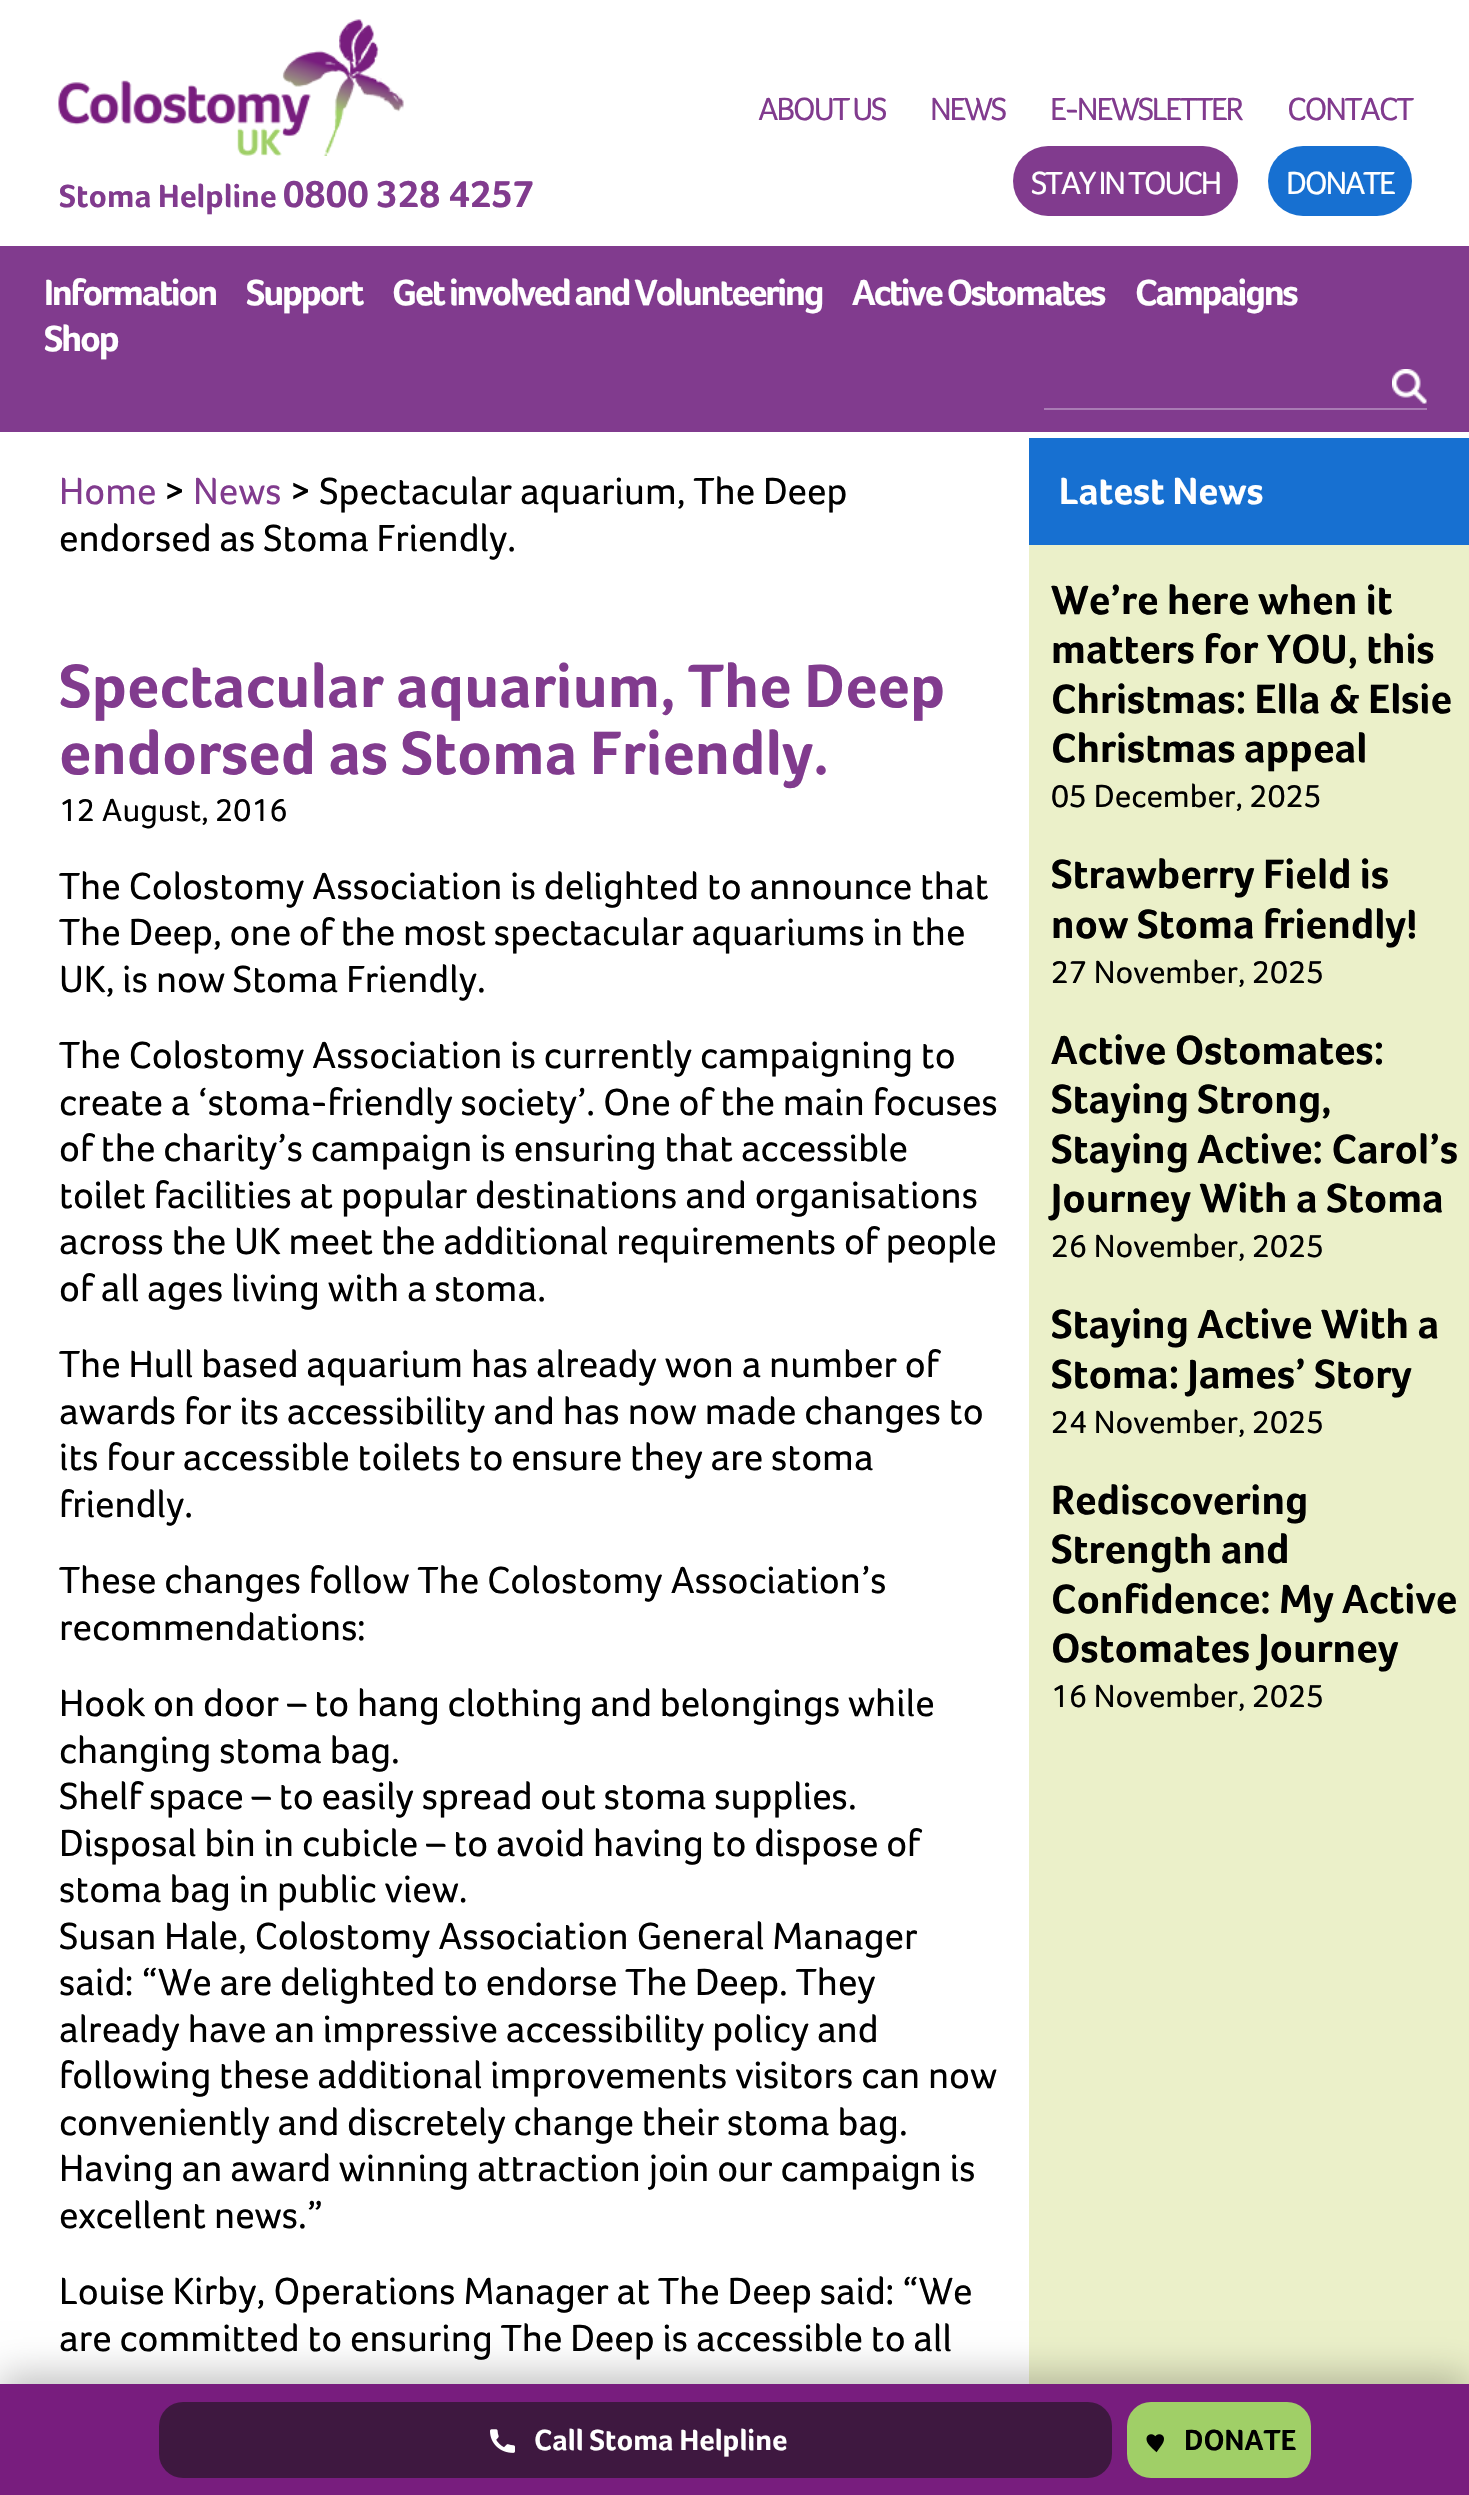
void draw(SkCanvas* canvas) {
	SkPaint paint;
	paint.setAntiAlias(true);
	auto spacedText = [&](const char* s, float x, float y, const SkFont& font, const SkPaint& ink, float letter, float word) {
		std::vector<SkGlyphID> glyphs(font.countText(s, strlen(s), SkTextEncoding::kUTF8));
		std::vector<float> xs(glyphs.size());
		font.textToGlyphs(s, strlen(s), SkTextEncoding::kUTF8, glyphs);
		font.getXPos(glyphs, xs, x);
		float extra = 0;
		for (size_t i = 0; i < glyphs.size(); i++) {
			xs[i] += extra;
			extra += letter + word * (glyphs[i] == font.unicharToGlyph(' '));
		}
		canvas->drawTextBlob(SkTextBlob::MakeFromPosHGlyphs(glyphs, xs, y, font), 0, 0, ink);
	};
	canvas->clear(0xffffffff);
	canvas->drawImageRect(SkImages::DeferredFromEncodedData(SkData::MakeFromFileName("img1.png")), SkRect::MakeXYWH(58, 19, 346, 137), SkSamplingOptions());
	SkFont f1(fontMgr->matchFamilyStyle("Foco", SkFontStyle::Bold()), 33);
	f1.setSubpixel(true);
	paint.setColor(0xff813b8e);
	canvas->drawString("Stoma Helpline", 59, 207, f1, paint);
	SkFont f2(fontMgr->matchFamilyStyle("Foco", SkFontStyle::Bold()), 39);
	f2.setSubpixel(true);
	canvas->drawString("0800 328 4257", 283, 207, f2, paint);
	SkFont f3(fontMgr->matchFamilyStyle("Foco", SkFontStyle::Normal()), 33);
	f3.setSubpixel(true);
	spacedText("ABOUT US", 758, 120, f3, paint, -2.25, 0);
	spacedText("NEWS", 930, 120, f3, paint, -2.25, 0);
	spacedText("E-NEWSLETTER", 1050, 120, f3, paint, -2.25, 0);
	spacedText("CONTACT", 1287, 120, f3, paint, -2.25, 0);
	canvas->drawRoundRect(SkRect::MakeXYWH(1013, 146, 225, 70), 35, 35, paint);
	paint.setColor(0xffffffff);
	spacedText("STAY IN TOUCH", 1031, 194, f3, paint, -2.25, 0);
	paint.setColor(0xff1770d1);
	canvas->drawRoundRect(SkRect::MakeXYWH(1268, 146, 144, 70), 35, 35, paint);
	paint.setColor(0xffffffff);
	spacedText("DONATE", 1286, 194, f3, paint, -2.25, 0);
	paint.setColor(0xff813b8e);
	canvas->drawRect(SkRect::MakeXYWH(0, 246, 1469, 186), paint);
	SkFont f4(fontMgr->matchFamilyStyle("Foco", SkFontStyle::Bold()), 37.5);
	f4.setSubpixel(true);
	paint.setColor(0xffffffff);
	spacedText("Information", 44, 305, f4, paint, -2.25, 0);
	spacedText("Support", 246, 305, f4, paint, -2.25, 0);
	spacedText("Get involved and Volunteering", 392, 305, f4, paint, -2.25, 0);
	spacedText("Active Ostomates", 852, 305, f4, paint, -2.25, 0);
	spacedText("Campaigns", 1135, 305, f4, paint, -2.25, 0);
	spacedText("Shop", 44, 351, f4, paint, -2.25, 0);
	canvas->drawImageRect(SkImages::DeferredFromEncodedData(SkData::MakeFromFileName("img2.png")), SkRect::MakeXYWH(1392, 369, 35, 35), SkSamplingOptions());
	paint.setColor(0xffa97bb4);
	canvas->drawRect(SkRect::MakeXYWH(1044, 408, 383, 2), paint);
	SkFont f5(fontMgr->matchFamilyStyle("Foco", SkFontStyle::Normal()), 39);
	f5.setSubpixel(true);
	paint.setColor(0xff813b8e);
	canvas->drawString("Home", 59, 504, f5, paint);
	paint.setColor(0xff000000);
	canvas->drawString(">", 164, 504, f5, paint);
	paint.setColor(0xff813b8e);
	canvas->drawString("News", 193, 504, f5, paint);
	paint.setColor(0xff000000);
	canvas->drawString("> Spectacular aquarium, The Deep", 290, 504, f5, paint);
	canvas->drawString("endorsed as Stoma Friendly.", 59, 551, f5, paint);
	SkFont f6(fontMgr->matchFamilyStyle("Foco", SkFontStyle::Bold()), 63);
	f6.setSubpixel(true);
	paint.setColor(0xff813b8e);
	canvas->drawString("Spectacular aquarium, The Deep", 59, 707, f6, paint);
	canvas->drawString("endorsed as Stoma Friendly.", 59, 774, f6, paint);
	paint.setColor(0xff000000);
	canvas->drawString("12 August, 2016", 59, 821, f3, paint);
	canvas->drawString("The Colostomy Association is delighted to announce that", 59, 899, f5, paint);
	canvas->drawString("The Deep, one of the most spectacular aquariums in the", 59, 945, f5, paint);
	canvas->drawString("UK, is now Stoma Friendly.", 59, 992, f5, paint);
	canvas->drawString("The Colostomy Association is currently campaigning to", 59, 1068, f5, paint);
	canvas->drawString("create a ‘stoma-friendly society’. One of the main focuses", 59, 1115, f5, paint);
	canvas->drawString("of the charity’s campaign is ensuring that accessible", 59, 1161, f5, paint);
	canvas->drawString("toilet facilities at popular destinations and organisations", 59, 1208, f5, paint);
	canvas->drawString("across the UK meet the additional requirements of people", 59, 1254, f5, paint);
	canvas->drawString("of all ages living with a stoma.", 59, 1301, f5, paint);
	canvas->drawString("The Hull based aquarium has already won a number of", 59, 1377, f5, paint);
	canvas->drawString("awards for its accessibility and has now made changes to", 59, 1424, f5, paint);
	canvas->drawString("its four accessible toilets to ensure they are stoma", 59, 1470, f5, paint);
	canvas->drawString("friendly.", 59, 1517, f5, paint);
	canvas->drawString("These changes follow The Colostomy Association’s", 59, 1593, f5, paint);
	canvas->drawString("recommendations:", 59, 1640, f5, paint);
	canvas->drawString("Hook on door – to hang clothing and belongings while", 59, 1716, f5, paint);
	canvas->drawString("changing stoma bag.", 59, 1763, f5, paint);
	canvas->drawString("Shelf space – to easily spread out stoma supplies.", 59, 1809, f5, paint);
	canvas->drawString("Disposal bin in cubicle – to avoid having to dispose of", 59, 1856, f5, paint);
	canvas->drawString("stoma bag in public view.", 59, 1902, f5, paint);
	canvas->drawString("Susan Hale, Colostomy Association General Manager", 59, 1949, f5, paint);
	canvas->drawString("said: “We are delighted to endorse The Deep. They", 59, 1995, f5, paint);
	canvas->drawString("already have an impressive accessibility policy and", 59, 2042, f5, paint);
	canvas->drawString("following these additional improvements visitors can now", 59, 2088, f5, paint);
	canvas->drawString("conveniently and discretely change their stoma bag.", 59, 2135, f5, paint);
	canvas->drawString("Having an award winning attraction join our campaign is", 59, 2181, f5, paint);
	canvas->drawString("excellent news.”", 59, 2228, f5, paint);
	canvas->drawString("Louise Kirby, Operations Manager at The Deep said: “We", 59, 2304, f5, paint);
	canvas->drawString("are committed to ensuring The Deep is accessible to all", 59, 2351, f5, paint);
	paint.setColor(0xffebf0c9);
	canvas->drawRect(SkRect::MakeXYWH(1029, 545, 440, 1839), paint);
	paint.setColor(0xff1770d1);
	canvas->drawRect(SkRect::MakeXYWH(1029, 438, 440, 107), paint);
	paint.setColor(0xffffffff);
	canvas->drawString("Latest News", 1059, 504, f2, paint);
	SkFont f7(fontMgr->matchFamilyStyle("Foco", SkFontStyle::Bold()), 42);
	f7.setSubpixel(true);
	paint.setColor(0xff000000);
	canvas->drawString("We’re here when it", 1051, 614, f7, paint);
	canvas->drawString("matters for YOU, this", 1051, 663, f7, paint);
	canvas->drawString("Christmas: Ella & Elsie", 1051, 713, f7, paint);
	canvas->drawString("Christmas appeal", 1051, 762, f7, paint);
	canvas->drawString("05 December, 2025", 1051, 807, f3, paint);
	canvas->drawString("Strawberry Field is", 1051, 888, f7, paint);
	canvas->drawString("now Stoma friendly!", 1051, 938, f7, paint);
	canvas->drawString("27 November, 2025", 1051, 983, f3, paint);
	canvas->drawString("Active Ostomates:", 1051, 1064, f7, paint);
	canvas->drawString("Staying Strong,", 1051, 1113, f7, paint);
	canvas->drawString("Staying Active: Carol’s", 1051, 1163, f7, paint);
	canvas->drawString("Journey With a Stoma", 1051, 1212, f7, paint);
	canvas->drawString("26 November, 2025", 1051, 1257, f3, paint);
	canvas->drawString("Staying Active With a", 1051, 1338, f7, paint);
	canvas->drawString("Stoma: James’ Story", 1051, 1388, f7, paint);
	canvas->drawString("24 November, 2025", 1051, 1433, f3, paint);
	canvas->drawString("Rediscovering", 1051, 1514, f7, paint);
	canvas->drawString("Strength and", 1051, 1563, f7, paint);
	canvas->drawString("Confidence: My Active", 1051, 1613, f7, paint);
	canvas->drawString("Ostomates Journey", 1051, 1662, f7, paint);
	canvas->drawString("16 November, 2025", 1051, 1707, f3, paint);
	paint.setColor(0x40000000);
	paint.setMaskFilter(SkMaskFilter::MakeBlur(kNormal_SkBlurStyle, 18));
	canvas->drawRect(SkRect::MakeXYWH(0, 2375, 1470, 112), paint);
	paint.setMaskFilter(nullptr);
	paint.setColor(0xff781d7e);
	canvas->drawRect(SkRect::MakeXYWH(0, 2384, 1469, 111), paint);
	paint.setColor(0xff3e1840);
	canvas->drawRoundRect(SkRect::MakeXYWH(159, 2402, 953, 76), 24, 24, paint);
	canvas->drawImageRect(SkImages::DeferredFromEncodedData(SkData::MakeFromFileName("img3.png")), SkRect::MakeXYWH(490, 2429, 25, 24), SkSamplingOptions());
	SkFont f8(fontMgr->matchFamilyStyle("Foco", SkFontStyle::Bold()), 30);
	f8.setSubpixel(true);
	paint.setColor(0xffffffff);
	canvas->drawString("Call Stoma Helpline", 534, 2450, f8, paint);
	paint.setColor(0xffa0cf67);
	canvas->drawRoundRect(SkRect::MakeXYWH(1127, 2402, 184, 76), 24, 24, paint);
	canvas->drawImageRect(SkImages::DeferredFromEncodedData(SkData::MakeFromFileName("img4.png")), SkRect::MakeXYWH(1146, 2434, 18, 19), SkSamplingOptions());
	paint.setColor(0xff000000);
	canvas->drawString("DONATE", 1184, 2450, f8, paint);
}
